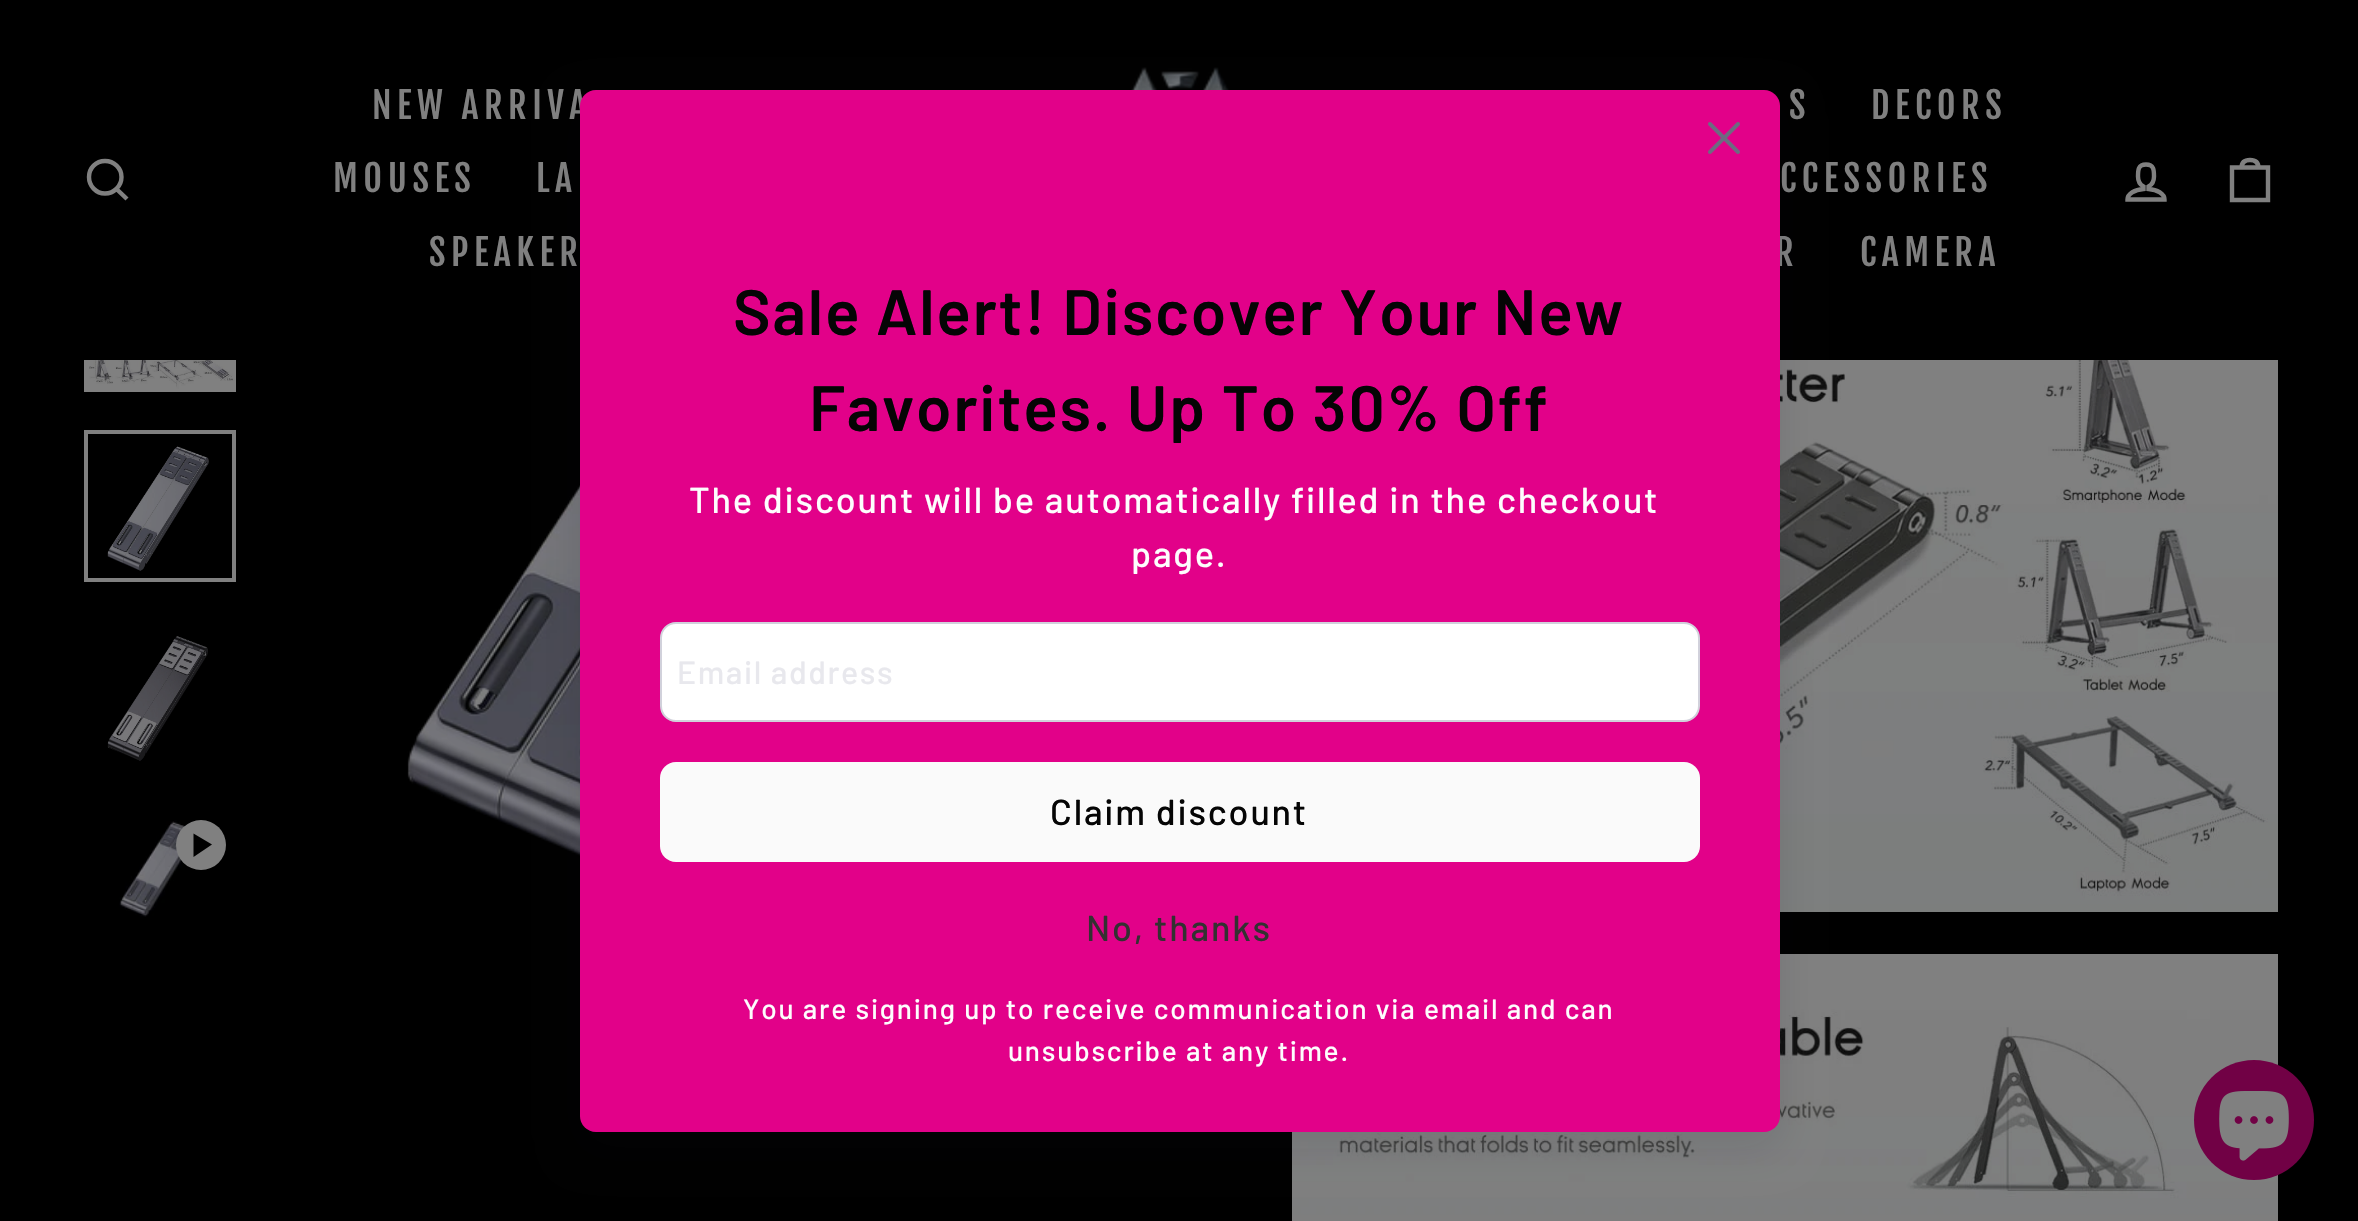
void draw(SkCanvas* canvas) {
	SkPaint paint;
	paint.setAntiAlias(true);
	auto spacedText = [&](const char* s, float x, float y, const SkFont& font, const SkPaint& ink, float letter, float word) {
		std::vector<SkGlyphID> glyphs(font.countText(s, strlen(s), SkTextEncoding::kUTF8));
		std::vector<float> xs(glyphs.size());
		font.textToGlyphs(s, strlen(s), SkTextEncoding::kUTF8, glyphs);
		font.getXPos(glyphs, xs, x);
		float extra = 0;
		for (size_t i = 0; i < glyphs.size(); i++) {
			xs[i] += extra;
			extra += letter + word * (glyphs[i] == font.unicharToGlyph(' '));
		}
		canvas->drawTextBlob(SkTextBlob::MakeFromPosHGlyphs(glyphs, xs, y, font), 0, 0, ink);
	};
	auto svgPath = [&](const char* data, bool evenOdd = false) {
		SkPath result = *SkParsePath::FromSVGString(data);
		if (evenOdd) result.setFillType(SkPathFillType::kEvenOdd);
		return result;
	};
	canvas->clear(0xff000000);
	paint.setStroke(true);
	paint.setStrokeWidth(4.4);
	paint.setColor(0xff808080);
	canvas->drawPath(svgPath("M121.5 177C121.5 186 114 193.5 105 193.5C96 193.5 89 186 89 177C89 168 96 161 105 161C114 161 121.5 168 121.5 177ZM127 199L116.5 189"), paint);
	canvas->drawImageRect(SkImages::DeferredFromEncodedData(SkData::MakeFromFileName("img1.png")), SkRect::MakeXYWH(1131, 67, 101, 23), SkSamplingOptions());
	SkFont f1(fontMgr->matchFamilyStyle("Fjalla One", SkFontStyle::Normal()), 36);
	f1.setSubpixel(true);
	paint.setStroke(false);
	spacedText("NEW ARRIVA", 372, 119, f1, paint, 5.5, 0);
	spacedText("MOUSES", 333, 192, f1, paint, 5.5, 0);
	spacedText("LA", 536, 192, f1, paint, 5.5, 0);
	spacedText("SPEAKER", 429, 266, f1, paint, 5.5, 0);
	spacedText("S", 1789, 119, f1, paint, 5.5, 0);
	spacedText("DECORS", 1871, 119, f1, paint, 5.5, 0);
	spacedText("CCESSORIES", 1780, 192, f1, paint, 5.5, 0);
	spacedText("R", 1775, 266, f1, paint, 5.5, 0);
	spacedText("CAMERA", 1860, 266, f1, paint, 5.5, 0);
	paint.setStroke(true);
	canvas->drawPath(svgPath("M2148.5 189V186.5C2151.5 185 2154 181 2154 176.5C2154 170 2154 164.5 2146 164.5C2138 164.5 2138 170 2138 176.5C2138 181 2140.5 185 2143.5 186.5V189C2134.5 189.5 2127.5 194 2127.5 199.5H2164.5C2164.5 194 2157.5 189.5 2148.5 189Z"), paint);
	canvas->drawPath(svgPath("M2232 167.5H2268V200H2232ZM2241.5 168C2241.5 161.5 2245.5 160 2250 160C2254.5 160 2258.5 161.5 2258.5 168"), paint);
	canvas->drawImageRect(SkImages::DeferredFromEncodedData(SkData::MakeFromFileName("img2.png")), SkRect::MakeXYWH(84, 360, 152, 32), SkSamplingOptions());
	canvas->drawImageRect(SkImages::DeferredFromEncodedData(SkData::MakeFromFileName("img3.png")), SkRect::MakeXYWH(107, 446, 102, 125), SkSamplingOptions());
	paint.setStrokeWidth(4);
	canvas->drawRect(SkRect::MakeXYWH(86, 432, 148, 148), paint);
	canvas->drawImageRect(SkImages::DeferredFromEncodedData(SkData::MakeFromFileName("img4.png")), SkRect::MakeXYWH(107, 636, 101, 125), SkSamplingOptions());
	canvas->drawImageRect(SkImages::DeferredFromEncodedData(SkData::MakeFromFileName("img5.png")), SkRect::MakeXYWH(119, 820, 79, 97), SkSamplingOptions());
	paint.setStroke(false);
	canvas->drawCircle(201, 845, 25, paint);
	paint.setColor(0xff000000);
	canvas->drawPath(svgPath("M193.5 833.5V857L212 844.5Z"), paint);
	canvas->drawImageRect(SkImages::DeferredFromEncodedData(SkData::MakeFromFileName("img6.png")), SkRect::MakeXYWH(407, 485, 173, 371), SkSamplingOptions());
	canvas->drawImageRect(SkImages::DeferredFromEncodedData(SkData::MakeFromFileName("img7.png")), SkRect::MakeXYWH(1780, 360, 498, 552), SkSamplingOptions());
	canvas->drawImageRect(SkImages::DeferredFromEncodedData(SkData::MakeFromFileName("img8.png")), SkRect::MakeXYWH(1292, 954, 986, 267), SkSamplingOptions());
	paint.setColor(0x1a121127);
	paint.setMaskFilter(SkMaskFilter::MakeBlur(kNormal_SkBlurStyle, 20));
	canvas->drawRoundRect(SkRect::MakeXYWH(580, 106, 1200, 1042), 16, 16, paint);
	paint.setMaskFilter(nullptr);
	paint.setColor(0xffe20189);
	canvas->drawRoundRect(SkRect::MakeXYWH(580, 90, 1200, 1042), 16, 16, paint);
	canvas->drawImageRect(SkImages::DeferredFromEncodedData(SkData::MakeFromFileName("img9.png")), SkRect::MakeXYWH(1708, 122, 32, 32), SkSamplingOptions());
	SkFont f2(fontMgr->matchFamilyStyle("Barlow", SkFontStyle(600, SkFontStyle::kNormal_Width, SkFontStyle::kUpright_Slant)), 64);
	f2.setSubpixel(true);
	paint.setColor(0xff050505);
	spacedText("Sale Alert! Discover Your New", 733, 335, f2, paint, 1.8, 0);
	spacedText("Favorites. Up To 30% Off", 809, 431, f2, paint, 1.8, 0);
	SkFont f3(fontMgr->matchFamilyStyle("Barlow", SkFontStyle(500, SkFontStyle::kNormal_Width, SkFontStyle::kUpright_Slant)), 36);
	f3.setSubpixel(true);
	paint.setColor(0xfffdfdfd);
	spacedText("The discount will be automatically filled in the checkout", 689, 513, f3, paint, 1.8, 0);
	spacedText("page.", 1131, 567, f3, paint, 1.8, 0);
	paint.setColor(0xffffffff);
	canvas->drawRoundRect(SkRect::MakeXYWH(661, 623, 1038, 98), 15, 15, paint);
	paint.setStroke(true);
	paint.setStrokeWidth(2);
	paint.setColor(0xffd1d1db);
	canvas->drawRoundRect(SkRect::MakeXYWH(661, 623, 1038, 98), 15, 15, paint);
	SkFont f4(fontMgr->matchFamilyStyle("Barlow", SkFontStyle(500, SkFontStyle::kNormal_Width, SkFontStyle::kUpright_Slant)), 32);
	f4.setSubpixel(true);
	paint.setStroke(false);
	paint.setColor(0xffe8e8ed);
	spacedText("Email address", 677, 684, f4, paint, 1.6, 0);
	paint.setColor(0xfffafafa);
	canvas->drawRoundRect(SkRect::MakeXYWH(660, 762, 1040, 100), 16, 16, paint);
	paint.setColor(0xff050505);
	spacedText("Claim discount", 1050, 825, f3, paint, 1.8, 0);
	paint.setColor(0xff333131);
	spacedText("No, thanks", 1086, 941, f3, paint, 1.8, 0);
	SkFont f5(fontMgr->matchFamilyStyle("Barlow", SkFontStyle(500, SkFontStyle::kNormal_Width, SkFontStyle::kUpright_Slant)), 28);
	f5.setSubpixel(true);
	paint.setColor(0xfffdfdfd);
	spacedText("You are signing up to receive communication via email and can", 743, 1019, f5, paint, 1.8, 0);
	spacedText("unsubscribe at any time.", 1008, 1061, f5, paint, 1.8, 0);
	paint.setColor(0xff710145);
	canvas->drawCircle(2254, 1120, 60, paint);
	canvas->drawImageRect(SkImages::DeferredFromEncodedData(SkData::MakeFromFileName("img10.png")), SkRect::MakeXYWH(2219, 1091, 70, 70), SkSamplingOptions());
}
